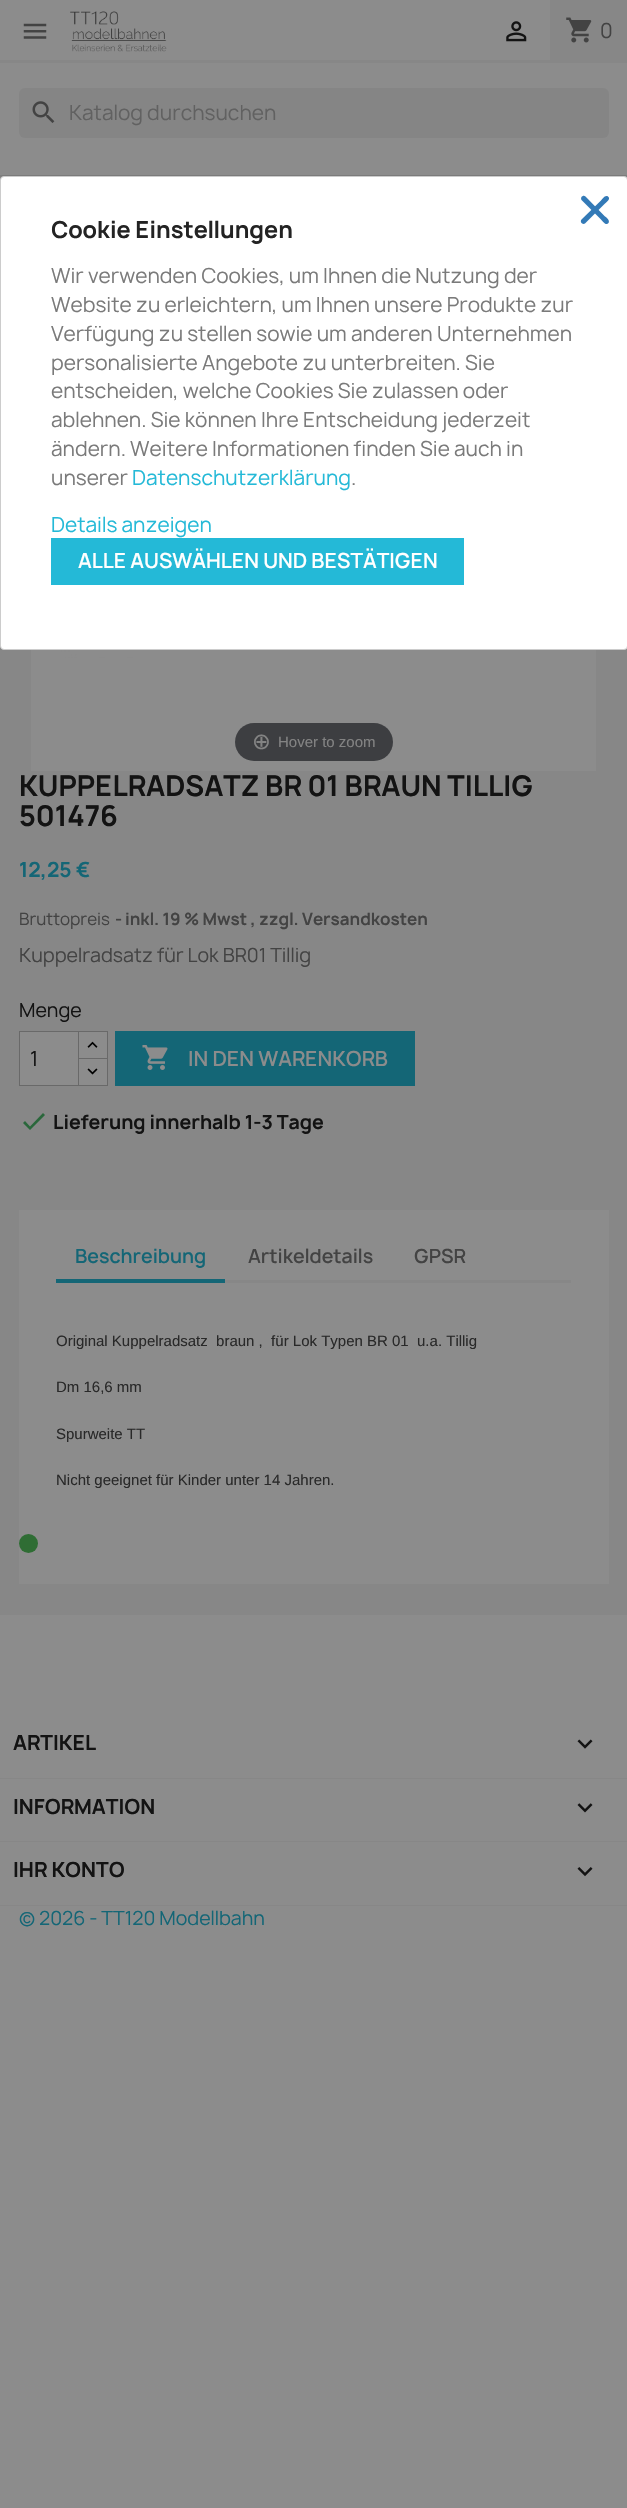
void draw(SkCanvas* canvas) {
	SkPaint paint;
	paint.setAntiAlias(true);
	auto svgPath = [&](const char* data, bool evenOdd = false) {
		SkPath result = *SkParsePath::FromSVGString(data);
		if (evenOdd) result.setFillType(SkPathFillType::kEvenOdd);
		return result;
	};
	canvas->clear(0xff8c8c8c);
	paint.setColor(0xff878787);
	canvas->drawRect(SkRect::MakeXYWH(0, 175, 627, 1440), paint);
	canvas->save();
	canvas->clipRect(SkRect::MakeXYWH(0, 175, 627, 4));
	paint.setColor(0x1c000000);
	paint.setMaskFilter(SkMaskFilter::MakeBlur(kNormal_SkBlurStyle, 3));
	canvas->drawRect(SkRect::MakeXYWH(0, 3, 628, 175), paint);
	paint.setMaskFilter(nullptr);
	canvas->restore();
	paint.setColor(0xff878787);
	canvas->drawRect(SkRect::MakeXYWH(0, 60, 627, 3), paint);
	canvas->drawImageRect(SkImages::DeferredFromEncodedData(SkData::MakeFromFileName("img1.png")), SkRect::MakeXYWH(23, 23, 24, 16), SkSamplingOptions());
	canvas->drawImageRect(SkImages::DeferredFromEncodedData(SkData::MakeFromFileName("img2.png")), SkRect::MakeXYWH(70, 11, 97, 41), SkSamplingOptions());
	canvas->drawImageRect(SkImages::DeferredFromEncodedData(SkData::MakeFromFileName("img3.png")), SkRect::MakeXYWH(506, 21, 21, 21), SkSamplingOptions());
	canvas->drawRect(SkRect::MakeXYWH(550, 0, 77, 60), paint);
	canvas->drawImageRect(SkImages::DeferredFromEncodedData(SkData::MakeFromFileName("img4.png")), SkRect::MakeXYWH(566, 17, 26, 26), SkSamplingOptions());
	SkFont f1(fontMgr->matchFamilyStyle("Manrope", SkFontStyle::Normal()), 20);
	f1.setSubpixel(true);
	paint.setColor(0xff434343);
	canvas->drawString("0", 600, 38, f1, paint);
	paint.setColor(0xff858585);
	canvas->drawRoundRect(SkRect::MakeXYWH(19, 88, 590, 50), 6, 6, paint);
	canvas->drawImageRect(SkImages::DeferredFromEncodedData(SkData::MakeFromFileName("img5.png")), SkRect::MakeXYWH(32, 101, 23, 22), SkSamplingOptions());
	paint.setColor(0xff616161);
	canvas->drawString("Katalog durchsuchen", 69, 120, f1, paint);
	paint.setColor(0xffffffff);
	canvas->drawRoundRect(SkRect::MakeXYWH(0.5, 176.5, 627, 473), 3.5, 3.5, paint);
	paint.setStroke(true);
	paint.setStrokeWidth(1);
	paint.setColor(0xffcccccc);
	canvas->drawRoundRect(SkRect::MakeXYWH(0.5, 176.5, 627, 473), 3.5, 3.5, paint);
	paint.setStroke(false);
	paint.setColor(0xff337ab7);
	canvas->drawPath(svgPath("M585.5 196.5L604.5 216C605.5 217 610.5 220 608.5 223C606 226.5 602 220.5 601 219.5L581.5 200C580 197.5 583 194.5 585.5 196.5Z"), paint);
	canvas->drawPath(svgPath("M581.5 219.5L601 200.5C602 199.5 605 194.5 608 196.5C611.5 199 605.5 203 604.5 204L585 223.5C582.5 225 579.5 222 581.5 219.5Z"), paint);
	SkFont f2(fontMgr->matchFamilyStyle("Manrope", SkFontStyle::Bold()), 22.5);
	f2.setSubpixel(true);
	paint.setColor(0xff232323);
	canvas->drawString("Cookie Einstellungen", 51, 238, f2, paint);
	paint.setColor(0xff7a7a7a);
	canvas->drawString("Wir verwenden Cookies, um Ihnen die Nutzung der", 51, 283, f1, paint);
	canvas->drawString("Website zu erleichtern, um Ihnen unsere Produkte zur", 51, 312, f1, paint);
	canvas->drawString("Verfügung zu stellen sowie um anderen Unternehmen", 51, 341, f1, paint);
	canvas->drawString("personalisierte Angebote zu unterbreiten. Sie", 51, 370, f1, paint);
	canvas->drawString("entscheiden, welche Cookies Sie zulassen oder", 51, 398, f1, paint);
	canvas->drawString("ablehnen. Sie können Ihre Entscheidung jederzeit", 51, 427, f1, paint);
	canvas->drawString("ändern. Weitere Informationen finden Sie auch in", 51, 456, f1, paint);
	canvas->drawString("unserer", 51, 485, f1, paint);
	paint.setColor(0xff24b9d7);
	canvas->drawString("Datenschutzerklärung", 132, 485, f1, paint);
	paint.setColor(0xff7a7a7a);
	canvas->drawString(".", 351, 485, f1, paint);
	paint.setColor(0xff24b9d7);
	canvas->drawString("Details anzeigen", 51, 532, f1, paint);
	canvas->drawRect(SkRect::MakeXYWH(51, 538, 413, 47), paint);
	SkFont f3(fontMgr->matchFamilyStyle("Manrope", SkFontStyle(600, SkFontStyle::kNormal_Width, SkFontStyle::kUpright_Slant)), 20);
	f3.setSubpixel(true);
	paint.setColor(0xffffffff);
	canvas->drawString("ALLE AUSWÄHLEN UND BESTÄTIGEN", 78, 568, f3, paint);
	paint.setColor(0xff878787);
	canvas->drawRect(SkRect::MakeXYWH(0, 1778, 627, 1), paint);
	SkFont f4(fontMgr->matchFamilyStyle("Manrope", SkFontStyle::Bold()), 20);
	f4.setSubpixel(true);
	paint.setColor(0xff131313);
	canvas->drawString("ARTIKEL", 13, 1750, f4, paint);
	canvas->drawImageRect(SkImages::DeferredFromEncodedData(SkData::MakeFromFileName("img6.png")), SkRect::MakeXYWH(577, 1739, 16, 10), SkSamplingOptions());
	paint.setColor(0xff878787);
	canvas->drawRect(SkRect::MakeXYWH(0, 1841, 627, 1), paint);
	paint.setColor(0xff131313);
	canvas->drawString("INFORMATION", 13, 1814, f4, paint);
	canvas->drawImageRect(SkImages::DeferredFromEncodedData(SkData::MakeFromFileName("img7.png")), SkRect::MakeXYWH(577, 1803, 16, 10), SkSamplingOptions());
	paint.setColor(0xff878787);
	canvas->drawRect(SkRect::MakeXYWH(0, 1905, 627, 1), paint);
	paint.setColor(0xff131313);
	canvas->drawString("IHR KONTO", 13, 1877, f4, paint);
	canvas->drawImageRect(SkImages::DeferredFromEncodedData(SkData::MakeFromFileName("img8.png")), SkRect::MakeXYWH(577, 1867, 16, 10), SkSamplingOptions());
	SkFont f5(fontMgr->matchFamilyStyle("Manrope", SkFontStyle::Normal()), 18.75);
	f5.setSubpixel(true);
	paint.setColor(0xff146676);
	canvas->drawString("© 2026 - TT120 Modellbahn", 19, 1925, f5, paint);
	canvas->drawImageRect(SkImages::DeferredFromEncodedData(SkData::MakeFromFileName("img9.png")), SkRect::MakeXYWH(31, 650, 565, 121), SkSamplingOptions());
	paint.setColor(0xff3d3e41);
	canvas->drawRoundRect(SkRect::MakeXYWH(235, 723, 158, 38), 19, 19, paint);
	SkFont f6(fontMgr->matchFamilyStyle("DejaVu Sans", SkFontStyle::Normal()), 22.5);
	f6.setSubpixel(true);
	paint.setColor(0xff838383);
	canvas->drawString("⊕", 252, 749, f6, paint);
	SkFont f7(fontMgr->matchFamilyStyle("Liberation Sans", SkFontStyle::Normal()), 15);
	f7.setSubpixel(true);
	canvas->drawString("Hover to zoom", 278, 747, f7, paint);
	SkFont f8(fontMgr->matchFamilyStyle("Manrope", SkFontStyle::Bold()), 27.5);
	f8.setSubpixel(true);
	paint.setColor(0xff131313);
	canvas->drawString("KUPPELRADSATZ BR 01 BRAUN TILLIG", 19, 796, f8, paint);
	canvas->drawString("501476", 19, 826, f8, paint);
	paint.setColor(0xff146676);
	canvas->drawString("12,25 €", 19, 877, f4, paint);
	SkFont f9(fontMgr->matchFamilyStyle("Manrope", SkFontStyle::Normal()), 16.25);
	f9.setSubpixel(true);
	paint.setColor(0xff434343);
	canvas->drawString("Bruttopreis", 19, 925, f9, paint);
	SkFont f10(fontMgr->matchFamilyStyle("Manrope", SkFontStyle::Bold()), 16.25);
	f10.setSubpixel(true);
	canvas->drawString("-", 115, 925, f10, paint);
	canvas->drawString("inkl. 19 % Mwst , zzgl. Versandkosten", 125, 925, f10, paint);
	paint.setColor(0xff8c8c8c);
	canvas->drawRect(SkRect::MakeXYWH(19, 1210, 590, 374), paint);
	paint.setColor(0xff2f6d34);
	canvas->drawCircle(28.5, 1543.5, 9.5, paint);
	paint.setColor(0xff434343);
	canvas->drawString("Kuppelradsatz für Lok BR01 Tillig", 19, 962, f5, paint);
	paint.setColor(0xff131313);
	canvas->drawString("Menge", 19, 1017, f5, paint);
	paint.setColor(0xff8c8c8c);
	canvas->drawRect(SkRect::MakeXYWH(79, 1032, 28, 26), paint);
	paint.setStroke(true);
	paint.setColor(0xff696969);
	canvas->drawRect(SkRect::MakeXYWH(78.5, 1031.5, 29, 28), paint);
	paint.setStroke(false);
	paint.setColor(0xff8c8c8c);
	canvas->drawRect(SkRect::MakeXYWH(78.5, 1058.5, 29, 27), paint);
	paint.setStroke(true);
	paint.setColor(0xff696969);
	canvas->drawRect(SkRect::MakeXYWH(78.5, 1058.5, 29, 27), paint);
	paint.setStroke(false);
	paint.setColor(0xff8c8c8c);
	canvas->drawRect(SkRect::MakeXYWH(19.5, 1031.5, 59, 54), paint);
	paint.setStroke(true);
	paint.setColor(0xff696969);
	canvas->drawRect(SkRect::MakeXYWH(19.5, 1031.5, 59, 54), paint);
	paint.setStroke(false);
	paint.setColor(0xff131313);
	canvas->drawString("1", 30, 1066, f1, paint);
	canvas->drawImageRect(SkImages::DeferredFromEncodedData(SkData::MakeFromFileName("img10.png")), SkRect::MakeXYWH(87, 1041, 11, 7), SkSamplingOptions());
	canvas->drawImageRect(SkImages::DeferredFromEncodedData(SkData::MakeFromFileName("img11.png")), SkRect::MakeXYWH(87, 1068, 11, 7), SkSamplingOptions());
	paint.setColor(0xff146676);
	canvas->drawRect(SkRect::MakeXYWH(115, 1031, 300, 55), paint);
	canvas->drawImageRect(SkImages::DeferredFromEncodedData(SkData::MakeFromFileName("img12.png")), SkRect::MakeXYWH(142, 1045, 26, 25), SkSamplingOptions());
	paint.setColor(0xff8c8c8c);
	canvas->drawString("IN DEN WARENKORB", 188, 1066, f3, paint);
	paint.setColor(0xff2a673b);
	canvas->drawPath(svgPath("M30 1126.5L43 1113L45 1115L30 1130L23 1123L25 1121Z"), paint);
	SkFont f11(fontMgr->matchFamilyStyle("Manrope", SkFontStyle::Bold()), 18.75);
	f11.setSubpixel(true);
	paint.setColor(0xff131313);
	canvas->drawString("Lieferung innerhalb 1-3 Tage", 53, 1129, f11, paint);
	paint.setColor(0xff878787);
	canvas->drawRect(SkRect::MakeXYWH(225, 1280, 346, 3), paint);
	paint.setColor(0xff146676);
	canvas->drawRect(SkRect::MakeXYWH(56, 1279, 169, 4), paint);
	SkFont f12(fontMgr->matchFamilyStyle("Manrope", SkFontStyle(600, SkFontStyle::kNormal_Width, SkFontStyle::kUpright_Slant)), 18.75);
	f12.setSubpixel(true);
	canvas->drawString("Beschreibung", 75, 1263, f12, paint);
	paint.setColor(0xff434343);
	canvas->drawString("Artikeldetails", 248, 1263, f12, paint);
	canvas->drawString("GPSR", 414, 1263, f12, paint);
	paint.setColor(0xff292929);
	canvas->drawString("Original Kuppelradsatz  braun ,  für Lok Typen BR 01  u.a. Tillig", 56, 1346, f7, paint);
	canvas->drawString("Dm 16,6 mm", 56, 1392, f7, paint);
	canvas->drawString("Spurweite TT", 56, 1439, f7, paint);
	canvas->drawString("Nicht geeignet für Kinder unter 14 Jahren.", 56, 1485, f7, paint);
}
